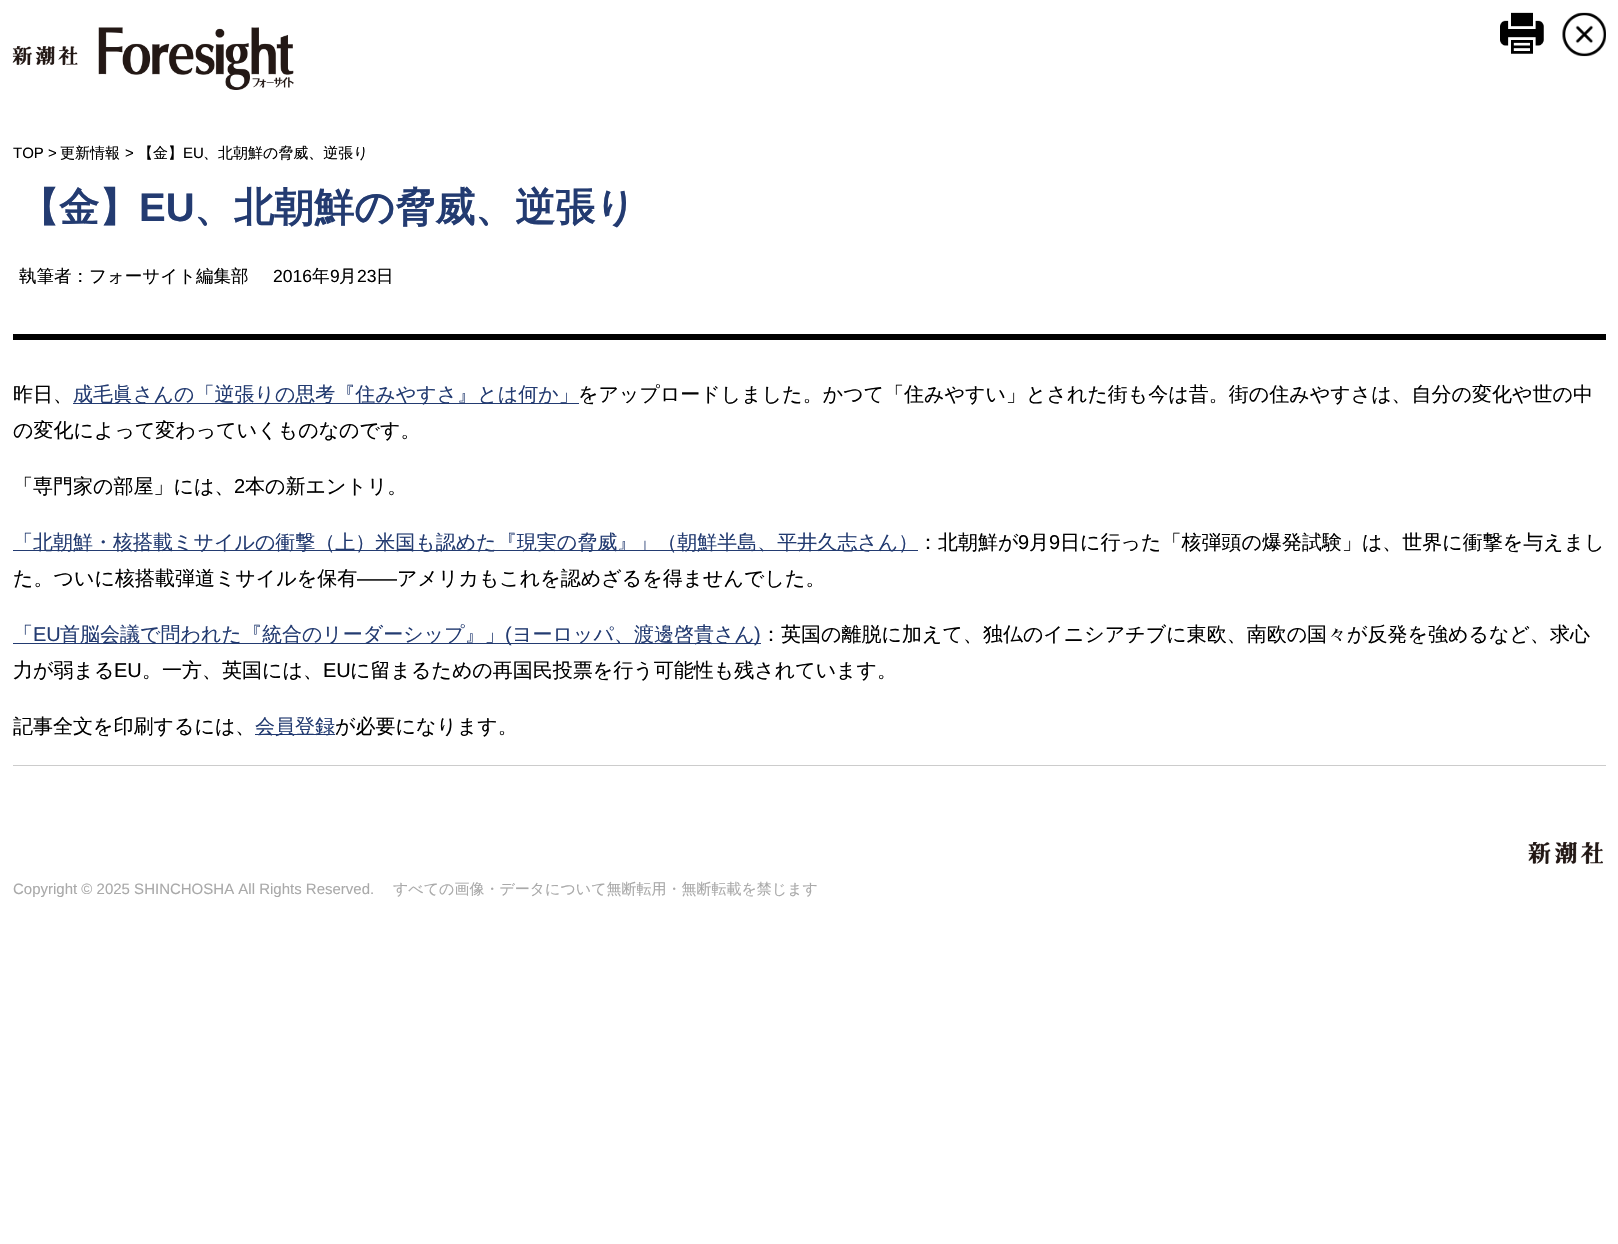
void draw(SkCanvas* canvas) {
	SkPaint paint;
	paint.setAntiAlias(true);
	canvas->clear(0xffffffff);
	canvas->drawImageRect(SkImages::DeferredFromEncodedData(SkData::MakeFromFileName("img1.png")), SkRect::MakeXYWH(12, 27, 282, 63), SkSamplingOptions());
	canvas->drawImageRect(SkImages::DeferredFromEncodedData(SkData::MakeFromFileName("img2.png")), SkRect::MakeXYWH(1500, 12, 44, 42), SkSamplingOptions());
	canvas->drawImageRect(SkImages::DeferredFromEncodedData(SkData::MakeFromFileName("img3.png")), SkRect::MakeXYWH(1562, 12, 44, 45), SkSamplingOptions());
	SkFont f1(fontMgr->matchFamilyStyle("Liberation Sans", SkFontStyle::Normal()), 15);
	f1.setSubpixel(true);
	paint.setColor(0xff000000);
	canvas->drawString("TOP >", 13, 158, f1, paint);
	SkFont f2(fontMgr->matchFamilyStyle("WenQuanYi Zen Hei", SkFontStyle(500, SkFontStyle::kNormal_Width, SkFontStyle::kUpright_Slant)), 15);
	f2.setSubpixel(true);
	canvas->drawString("更新情報", 60, 158, f2, paint);
	canvas->drawString(">", 125, 158, f1, paint);
	canvas->drawString("【金】", 138, 158, f2, paint);
	canvas->drawString("EU", 183, 158, f1, paint);
	canvas->drawString("、北朝鮮の脅威、逆張り", 203, 158, f2, paint);
	canvas->drawRect(SkRect::MakeXYWH(13, 334, 1593, 6), paint);
	SkFont f3(fontMgr->matchFamilyStyle("WenQuanYi Zen Hei", SkFontStyle::Bold()), 40);
	f3.setSubpixel(true);
	paint.setColor(0xff233b71);
	canvas->drawString("【金】", 19, 221, f3, paint);
	SkFont f4(fontMgr->matchFamilyStyle("Liberation Sans", SkFontStyle::Bold()), 40);
	f4.setSubpixel(true);
	canvas->drawString("EU", 139, 221, f4, paint);
	canvas->drawString("、北朝鮮の脅威、逆張り", 194, 221, f3, paint);
	SkFont f5(fontMgr->matchFamilyStyle("WenQuanYi Zen Hei", SkFontStyle(500, SkFontStyle::kNormal_Width, SkFontStyle::kUpright_Slant)), 17.5);
	f5.setSubpixel(true);
	paint.setColor(0xff000000);
	canvas->drawString("執筆者：フォーサイト編集部", 19, 282, f5, paint);
	SkFont f6(fontMgr->matchFamilyStyle("Liberation Sans", SkFontStyle::Normal()), 17.5);
	f6.setSubpixel(true);
	canvas->drawString("2016", 273, 282, f6, paint);
	canvas->drawString("年", 312, 282, f5, paint);
	canvas->drawString("9", 330, 282, f6, paint);
	canvas->drawString("月", 339, 282, f5, paint);
	canvas->drawString("23", 357, 282, f6, paint);
	canvas->drawString("日", 376, 282, f5, paint);
	paint.setColor(0xffcccccc);
	canvas->drawRect(SkRect::MakeXYWH(13, 765, 1593, 1), paint);
	SkFont f7(fontMgr->matchFamilyStyle("WenQuanYi Zen Hei", SkFontStyle(500, SkFontStyle::kNormal_Width, SkFontStyle::kUpright_Slant)), 20);
	f7.setSubpixel(true);
	paint.setColor(0xff000000);
	canvas->drawString("昨日、", 13, 401, f7, paint);
	paint.setColor(0xff233b71);
	canvas->drawRect(SkRect::MakeXYWH(73, 403, 506, 1), paint);
	canvas->drawString("成毛眞さんの「逆張りの思考『住みやすさ』とは何か」", 73, 401, f7, paint);
	paint.setColor(0xff000000);
	canvas->drawString("をアップロードしました。かつて「住みやすい」とされた街も今は昔。街の住みやすさは、自分の変化や世の中", 578, 401, f7, paint);
	canvas->drawString("の変化によって変わっていくものなのです。", 13, 437, f7, paint);
	canvas->drawString("「専門家の部屋」には、", 13, 493, f7, paint);
	SkFont f8(fontMgr->matchFamilyStyle("Liberation Sans", SkFontStyle::Normal()), 20);
	f8.setSubpixel(true);
	canvas->drawString("2", 234, 493, f8, paint);
	canvas->drawString("本の新エントリ。", 245, 493, f7, paint);
	paint.setColor(0xff233b71);
	canvas->drawRect(SkRect::MakeXYWH(13, 550, 905, 1), paint);
	canvas->drawString("「北朝鮮・核搭載ミサイルの衝撃（上）米国も認めた『現実の脅威』」（朝鮮半島、平井久志さん）", 13, 549, f7, paint);
	paint.setColor(0xff000000);
	canvas->drawString("：北朝鮮が", 918, 549, f7, paint);
	canvas->drawString("9", 1018, 549, f8, paint);
	canvas->drawString("月", 1029, 549, f7, paint);
	canvas->drawString("9", 1049, 549, f8, paint);
	canvas->drawString("日に行った「核弾頭の爆発試験」は、世界に衝撃を与えまし", 1060, 549, f7, paint);
	canvas->drawString("た。ついに核搭載弾道ミサイルを保有", 13, 585, f7, paint);
	canvas->drawString("――", 357, 585, f8, paint);
	canvas->drawString("アメリカもこれを認めざるを得ませんでした。", 397, 585, f7, paint);
	paint.setColor(0xff233b71);
	canvas->drawString("「", 13, 641, f7, paint);
	canvas->drawString("EU", 33, 641, f8, paint);
	canvas->drawRect(SkRect::MakeXYWH(13, 643, 748, 1), paint);
	canvas->drawString("首脳会議で問われた『統合のリーダーシップ』」", 60, 641, f7, paint);
	canvas->drawString("(", 505, 641, f8, paint);
	canvas->drawString("ヨーロッパ、渡邊啓貴さん", 512, 641, f7, paint);
	canvas->drawString(")", 754, 641, f8, paint);
	paint.setColor(0xff000000);
	canvas->drawString("：英国の離脱に加えて、独仏のイニシアチブに東欧、南欧の国々が反発を強めるなど、求心", 761, 641, f7, paint);
	canvas->drawString("力が弱まる", 13, 677, f7, paint);
	canvas->drawString("EU", 114, 677, f8, paint);
	canvas->drawString("。一方、英国には、", 142, 677, f7, paint);
	canvas->drawString("EU", 323, 677, f8, paint);
	canvas->drawString("に留まるための再国民投票を行う可能性も残されています。", 350, 677, f7, paint);
	canvas->drawString("記事全文を印刷するには、", 13, 733, f7, paint);
	paint.setColor(0xff233b71);
	canvas->drawRect(SkRect::MakeXYWH(255, 734, 80, 1), paint);
	canvas->drawString("会員登録", 255, 733, f7, paint);
	paint.setColor(0xff000000);
	canvas->drawString("が必要になります。", 335, 733, f7, paint);
	canvas->drawImageRect(SkImages::DeferredFromEncodedData(SkData::MakeFromFileName("img4.png")), SkRect::MakeXYWH(1528, 842, 75, 22), SkSamplingOptions());
	paint.setColor(0xffa9a9a9);
	canvas->drawString("Copyright © 2025 SHINCHOSHA All Rights Reserved.", 13, 894, f1, paint);
	canvas->drawString("すべての画像・データについて無断転用・無断転載を禁じます", 393, 894, f2, paint);
}
